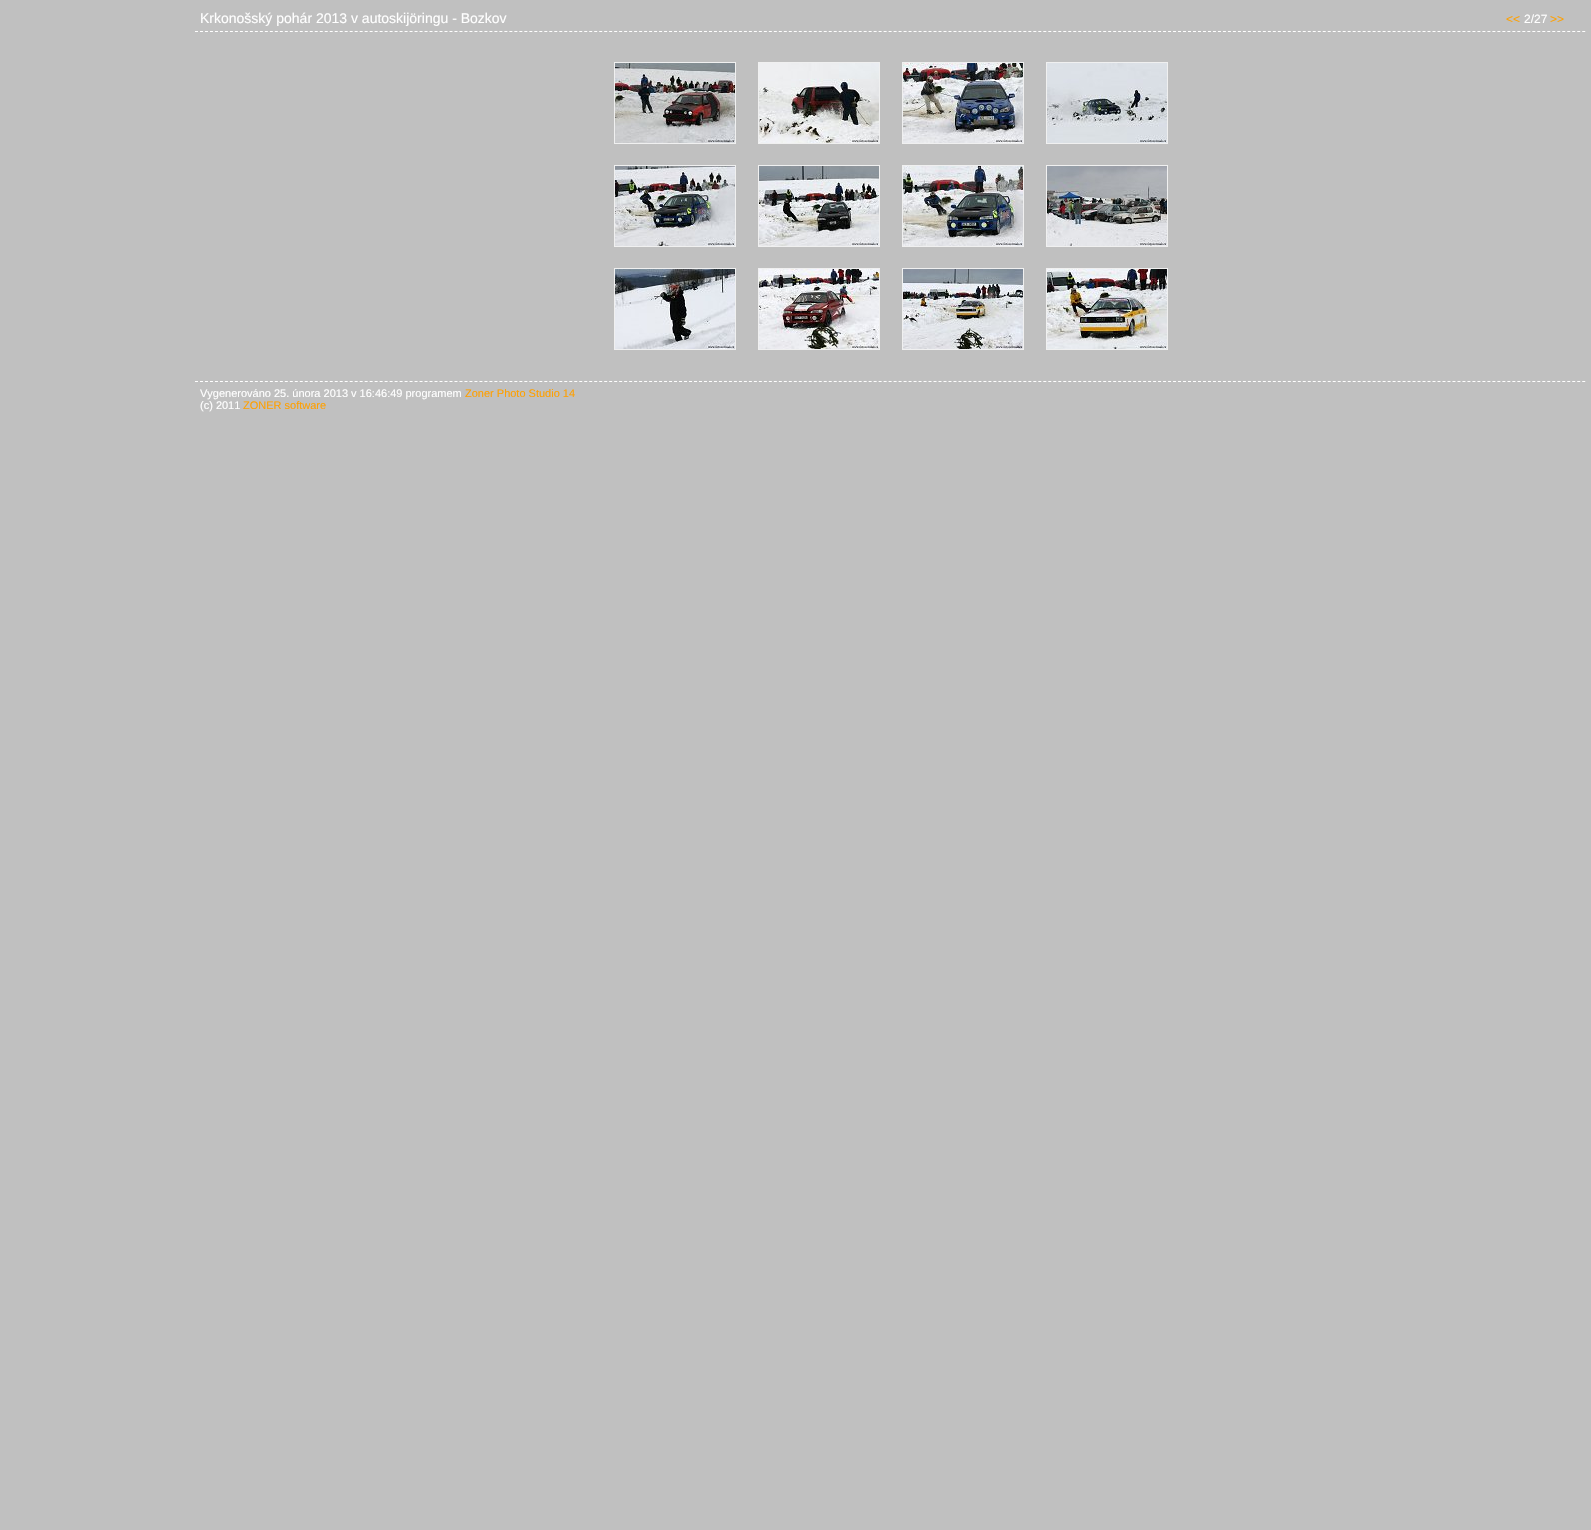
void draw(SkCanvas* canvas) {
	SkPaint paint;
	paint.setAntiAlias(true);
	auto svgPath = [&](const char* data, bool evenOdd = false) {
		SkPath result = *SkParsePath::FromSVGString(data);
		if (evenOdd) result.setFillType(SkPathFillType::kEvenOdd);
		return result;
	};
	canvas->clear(0xffc0c0c0);
	paint.setStroke(true);
	paint.setStrokeWidth(1);
	paint.setColor(0xffffffff);
	paint.setPathEffect(SkDashPathEffect::Make({{3, 1.99f}}, 0));
	canvas->drawPath(svgPath("M195 31.5H1586"), paint);
	paint.setPathEffect(nullptr);
	SkFont f1(fontMgr->matchFamilyStyle("Liberation Sans", SkFontStyle::Normal()), 14);
	f1.setSubpixel(true);
	paint.setStroke(false);
	canvas->drawString("Krkonošský pohár 2013 v autoskijöringu - Bozkov", 200, 23, f1, paint);
	SkFont f2(fontMgr->matchFamilyStyle("Liberation Sans", SkFontStyle::Normal()), 12);
	f2.setSubpixel(true);
	paint.setColor(0xffffa000);
	canvas->drawString("<<", 1506, 23, f2, paint);
	paint.setColor(0xffffffff);
	canvas->drawString("2/27", 1524, 23, f2, paint);
	paint.setColor(0xffffa000);
	canvas->drawString(">>", 1550, 23, f2, paint);
	paint.setStroke(true);
	paint.setColor(0xfff0f0f0);
	canvas->drawRect(SkRect::MakeXYWH(614.5, 62.5, 121, 81), paint);
	canvas->drawImageRect(SkImages::DeferredFromEncodedData(SkData::MakeFromFileName("img1.png")), SkRect::MakeXYWH(615, 63, 120, 80), SkSamplingOptions());
	canvas->drawRect(SkRect::MakeXYWH(758.5, 62.5, 121, 81), paint);
	canvas->drawImageRect(SkImages::DeferredFromEncodedData(SkData::MakeFromFileName("img2.png")), SkRect::MakeXYWH(759, 63, 120, 80), SkSamplingOptions());
	canvas->drawRect(SkRect::MakeXYWH(902.5, 62.5, 121, 81), paint);
	canvas->drawImageRect(SkImages::DeferredFromEncodedData(SkData::MakeFromFileName("img3.png")), SkRect::MakeXYWH(903, 63, 120, 80), SkSamplingOptions());
	canvas->drawRect(SkRect::MakeXYWH(1046.5, 62.5, 121, 81), paint);
	canvas->drawImageRect(SkImages::DeferredFromEncodedData(SkData::MakeFromFileName("img4.png")), SkRect::MakeXYWH(1047, 63, 120, 80), SkSamplingOptions());
	canvas->drawRect(SkRect::MakeXYWH(614.5, 165.5, 121, 81), paint);
	canvas->drawImageRect(SkImages::DeferredFromEncodedData(SkData::MakeFromFileName("img5.png")), SkRect::MakeXYWH(615, 166, 120, 80), SkSamplingOptions());
	canvas->drawRect(SkRect::MakeXYWH(758.5, 165.5, 121, 81), paint);
	canvas->drawImageRect(SkImages::DeferredFromEncodedData(SkData::MakeFromFileName("img6.png")), SkRect::MakeXYWH(759, 166, 120, 80), SkSamplingOptions());
	canvas->drawRect(SkRect::MakeXYWH(902.5, 165.5, 121, 81), paint);
	canvas->drawImageRect(SkImages::DeferredFromEncodedData(SkData::MakeFromFileName("img7.png")), SkRect::MakeXYWH(903, 166, 120, 80), SkSamplingOptions());
	canvas->drawRect(SkRect::MakeXYWH(1046.5, 165.5, 121, 81), paint);
	canvas->drawImageRect(SkImages::DeferredFromEncodedData(SkData::MakeFromFileName("img8.png")), SkRect::MakeXYWH(1047, 166, 120, 80), SkSamplingOptions());
	canvas->drawRect(SkRect::MakeXYWH(614.5, 268.5, 121, 81), paint);
	canvas->drawImageRect(SkImages::DeferredFromEncodedData(SkData::MakeFromFileName("img9.png")), SkRect::MakeXYWH(615, 269, 120, 80), SkSamplingOptions());
	canvas->drawRect(SkRect::MakeXYWH(758.5, 268.5, 121, 81), paint);
	canvas->drawImageRect(SkImages::DeferredFromEncodedData(SkData::MakeFromFileName("img10.png")), SkRect::MakeXYWH(759, 269, 120, 80), SkSamplingOptions());
	canvas->drawRect(SkRect::MakeXYWH(902.5, 268.5, 121, 81), paint);
	canvas->drawImageRect(SkImages::DeferredFromEncodedData(SkData::MakeFromFileName("img11.png")), SkRect::MakeXYWH(903, 269, 120, 80), SkSamplingOptions());
	canvas->drawRect(SkRect::MakeXYWH(1046.5, 268.5, 121, 81), paint);
	canvas->drawImageRect(SkImages::DeferredFromEncodedData(SkData::MakeFromFileName("img12.png")), SkRect::MakeXYWH(1047, 269, 120, 80), SkSamplingOptions());
	paint.setColor(0xffffffff);
	paint.setPathEffect(SkDashPathEffect::Make({{3, 1.99f}}, 0));
	canvas->drawPath(svgPath("M195 381.5H1586"), paint);
	paint.setPathEffect(nullptr);
	SkFont f3(fontMgr->matchFamilyStyle("Liberation Sans", SkFontStyle::Normal()), 11);
	f3.setSubpixel(true);
	paint.setStroke(false);
	canvas->drawString("Vygenerováno 25. února 2013 v 16:46:49 programem", 200, 397, f3, paint);
	paint.setColor(0xffffa000);
	canvas->drawString("Zoner Photo Studio 14", 465, 397, f3, paint);
	paint.setColor(0xffffffff);
	canvas->drawString("(c) 2011", 200, 409, f3, paint);
	paint.setColor(0xffffa000);
	canvas->drawString("ZONER software", 243, 409, f3, paint);
}
